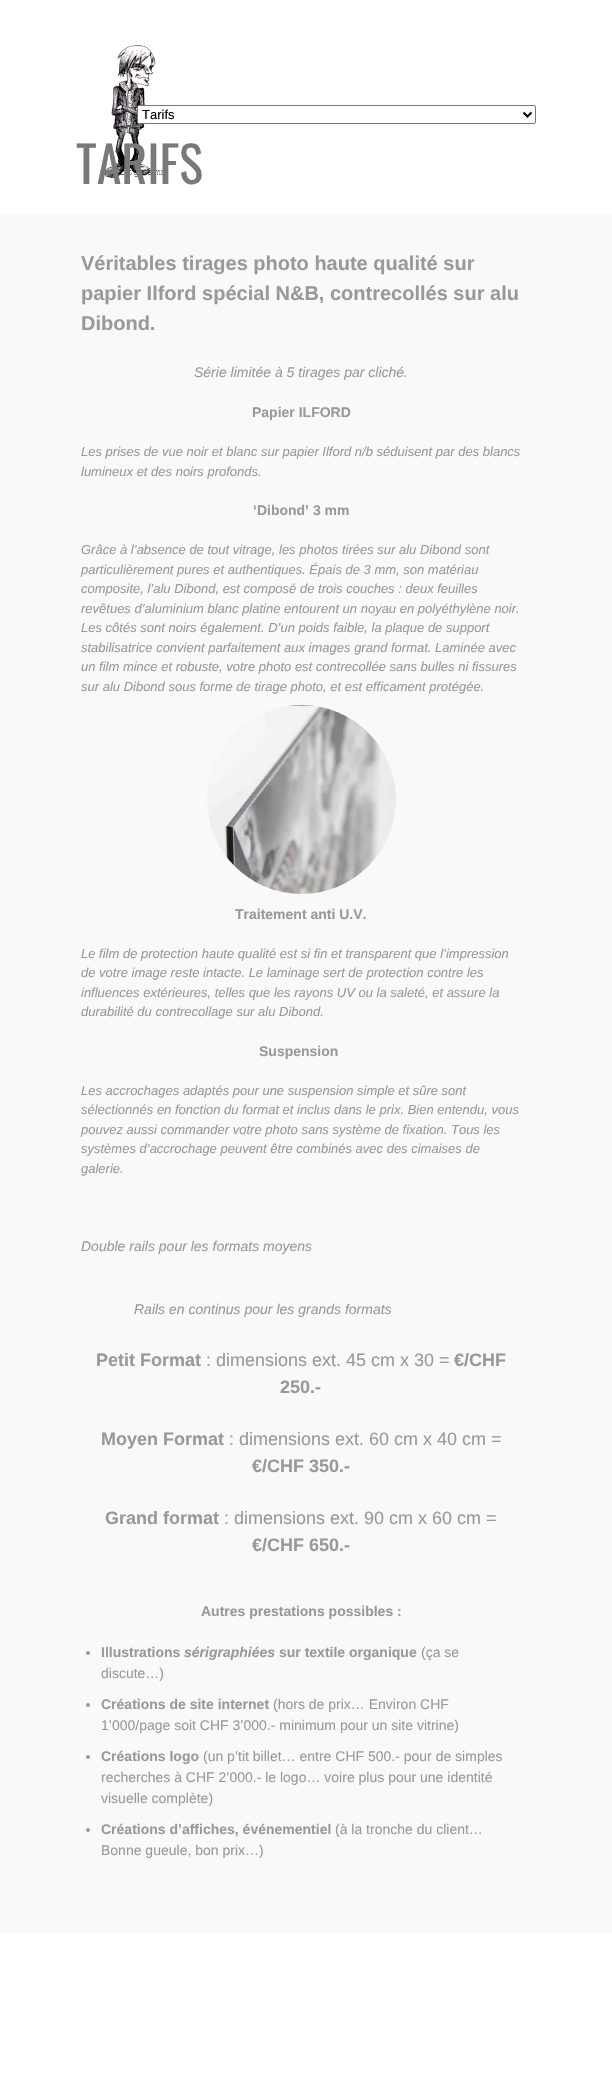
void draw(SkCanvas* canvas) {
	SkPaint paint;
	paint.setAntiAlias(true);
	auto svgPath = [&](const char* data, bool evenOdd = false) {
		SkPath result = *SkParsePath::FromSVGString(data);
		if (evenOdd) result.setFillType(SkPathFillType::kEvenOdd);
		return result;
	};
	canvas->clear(0xffffffff);
	canvas->drawImageRect(SkImages::DeferredFromEncodedData(SkData::MakeFromFileName("img1.png")), SkRect::MakeXYWH(104, 45, 64, 134), SkSamplingOptions());
	paint.setColor(0xffffffff);
	canvas->drawRoundRect(SkRect::MakeXYWH(137.5, 105.5, 398, 18), 1.5, 1.5, paint);
	paint.setStroke(true);
	paint.setStrokeWidth(1);
	paint.setColor(0xff767676);
	canvas->drawRoundRect(SkRect::MakeXYWH(137.5, 105.5, 398, 18), 1.5, 1.5, paint);
	paint.setStrokeWidth(2);
	paint.setColor(0xff000000);
	canvas->drawPath(svgPath("M523.5 112.5L527.5 116.5L531.5 112.5"), paint);
	SkFont f1(fontMgr->matchFamilyStyle("Liberation Sans", SkFontStyle::Normal()), 13);
	f1.setSubpixel(true);
	paint.setStroke(false);
	canvas->drawString("Tarifs", 142, 119, f1, paint);
	SkFont f2(fontMgr->matchFamilyStyle("Oswald", SkFontStyle::Normal()), 50);
	f2.setSubpixel(true);
	paint.setColor(0xff797979);
	canvas->drawString("TARIFS", 76, 184, f2, paint);
	paint.setColor(0xfff9f9f9);
	canvas->drawRect(SkRect::MakeXYWH(0, 214, 612, 1719), paint);
	SkFont f3(fontMgr->matchFamilyStyle("Liberation Sans", SkFontStyle::Bold()), 20);
	f3.setSubpixel(true);
	paint.setColor(0xff999999);
	canvas->drawString("Véritables tirages photo haute qualité sur", 81, 270, f3, paint);
	canvas->drawString("papier Ilford spécial N&B, contrecollés sur alu", 81, 300, f3, paint);
	canvas->drawString("Dibond.", 81, 330, f3, paint);
	SkFont f4(fontMgr->matchFamilyStyle("Liberation Sans", SkFontStyle::Italic()), 14);
	f4.setSubpixel(true);
	canvas->drawString("Série limitée à 5 tirages par cliché.", 194, 377, f4, paint);
	SkFont f5(fontMgr->matchFamilyStyle("Liberation Sans", SkFontStyle::Bold()), 14);
	f5.setSubpixel(true);
	canvas->drawString("Papier ILFORD", 252, 417, f5, paint);
	SkFont f6(fontMgr->matchFamilyStyle("Liberation Sans", SkFontStyle::Italic()), 13);
	f6.setSubpixel(true);
	canvas->drawString("Les prises de vue noir et blanc sur papier Ilford n/b séduisent par des blancs", 81, 456, f6, paint);
	canvas->drawString("lumineux et des noirs profonds.", 81, 476, f6, paint);
	canvas->drawString("‘Dibond’ 3 mm", 253, 515, f5, paint);
	canvas->drawString("Grâce à l’absence de tout vitrage, les photos tirées sur alu Dibond sont", 81, 554, f6, paint);
	canvas->drawString("particulièrement pures et authentiques. Épais de 3 mm, son matériau", 81, 574, f6, paint);
	canvas->drawString("composite, l’alu Dibond, est composé de trois couches : deux feuilles", 81, 593, f6, paint);
	canvas->drawString("revêtues d’aluminium blanc platine entourent un noyau en polyéthylène noir.", 81, 613, f6, paint);
	canvas->drawString("Les côtés sont noirs également. D’un poids faible, la plaque de support", 81, 632, f6, paint);
	canvas->drawString("stabilisatrice convient parfaitement aux images grand format. Laminée avec", 81, 652, f6, paint);
	canvas->drawString("un film mince et robuste, votre photo est contrecollée sans bulles ni fissures", 81, 671, f6, paint);
	canvas->drawString("sur alu Dibond sous forme de tirage photo, et est efficament protégée.", 81, 691, f6, paint);
	canvas->drawImageRect(SkImages::DeferredFromEncodedData(SkData::MakeFromFileName("img2.png")), SkRect::MakeXYWH(207, 705, 189, 189), SkSamplingOptions());
	canvas->drawString("Traitement anti U.V.", 235, 919, f5, paint);
	canvas->drawString("Le film de protection haute qualité est si fin et transparent que l’impression", 81, 958, f6, paint);
	canvas->drawString("de votre image reste intacte. Le laminage sert de protection contre les", 81, 977, f6, paint);
	canvas->drawString("influences extérieures, telles que les rayons UV ou la saleté, et assure la", 81, 997, f6, paint);
	canvas->drawString("durabilité du contrecollage sur alu Dibond.", 81, 1016, f6, paint);
	canvas->drawString("Suspension", 259, 1056, f5, paint);
	canvas->drawString("Les accrochages adaptés pour une suspension simple et sûre sont", 81, 1095, f6, paint);
	canvas->drawString("sélectionnés en fonction du format et inclus dans le prix. Bien entendu, vous", 81, 1114, f6, paint);
	canvas->drawString("pouvez aussi commander votre photo sans système de fixation. Tous les", 81, 1134, f6, paint);
	canvas->drawString("systèmes d’accrochage peuvent être combinés avec des cimaises de", 81, 1153, f6, paint);
	canvas->drawString("galerie.", 81, 1173, f6, paint);
	canvas->drawString("Double rails pour les formats moyens", 81, 1251, f4, paint);
	canvas->drawString("Rails en continus pour les grands formats", 134, 1314, f4, paint);
	SkFont f7(fontMgr->matchFamilyStyle("Liberation Sans", SkFontStyle::Bold()), 18);
	f7.setSubpixel(true);
	canvas->drawString("Petit Format", 96, 1366, f7, paint);
	SkFont f8(fontMgr->matchFamilyStyle("Liberation Sans", SkFontStyle::Normal()), 18);
	f8.setSubpixel(true);
	canvas->drawString(": dimensions ext. 45 cm x 30 =", 206, 1366, f8, paint);
	canvas->drawString("€/CHF", 454, 1366, f7, paint);
	canvas->drawString("250.-", 280, 1393, f7, paint);
	canvas->drawString("Moyen Format", 101, 1445, f7, paint);
	canvas->drawString(": dimensions ext. 60 cm x 40 cm =", 229, 1445, f8, paint);
	canvas->drawString("€/CHF 350.-", 252, 1472, f7, paint);
	canvas->drawString("Grand format", 105, 1524, f7, paint);
	canvas->drawString(": dimensions ext. 90 cm x 60 cm =", 224, 1524, f8, paint);
	canvas->drawString("€/CHF 650.-", 252, 1551, f7, paint);
	canvas->drawString("Autres prestations possibles :", 201, 1616, f5, paint);
	canvas->drawCircle(88, 1653, 2, paint);
	canvas->drawString("Illustrations", 101, 1657, f5, paint);
	SkFont f9(fontMgr->matchFamilyStyle("Liberation Sans", SkFontStyle::BoldItalic()), 14);
	f9.setSubpixel(true);
	canvas->drawString("sérigraphiées", 184, 1657, f9, paint);
	canvas->drawString("sur textile organique", 279, 1657, f5, paint);
	SkFont f10(fontMgr->matchFamilyStyle("Liberation Sans", SkFontStyle::Normal()), 14);
	f10.setSubpixel(true);
	canvas->drawString("(ça se", 421, 1657, f10, paint);
	canvas->drawString("discute…)", 101, 1678, f10, paint);
	canvas->drawCircle(88, 1705, 2, paint);
	canvas->drawString("Créations de site internet", 101, 1709, f5, paint);
	canvas->drawString("(hors de prix… Environ CHF", 273, 1709, f10, paint);
	canvas->drawString("1’000/page soit CHF 3’000.- minimum pour un site vitrine)", 101, 1730, f10, paint);
	canvas->drawCircle(88, 1757, 2, paint);
	canvas->drawString("Créations logo", 101, 1761, f5, paint);
	canvas->drawString("(un p’tit billet… entre CHF 500.- pour de simples", 203, 1761, f10, paint);
	canvas->drawString("recherches à CHF 2’000.- le logo… voire plus pour une identité", 101, 1782, f10, paint);
	canvas->drawString("visuelle complète)", 101, 1803, f10, paint);
	canvas->drawCircle(88, 1830, 2, paint);
	canvas->drawString("Créations d’affiches, événementiel", 101, 1834, f5, paint);
	canvas->drawString("(à la tronche du client…", 335, 1834, f10, paint);
	canvas->drawString("Bonne gueule, bon prix…)", 101, 1855, f10, paint);
}
